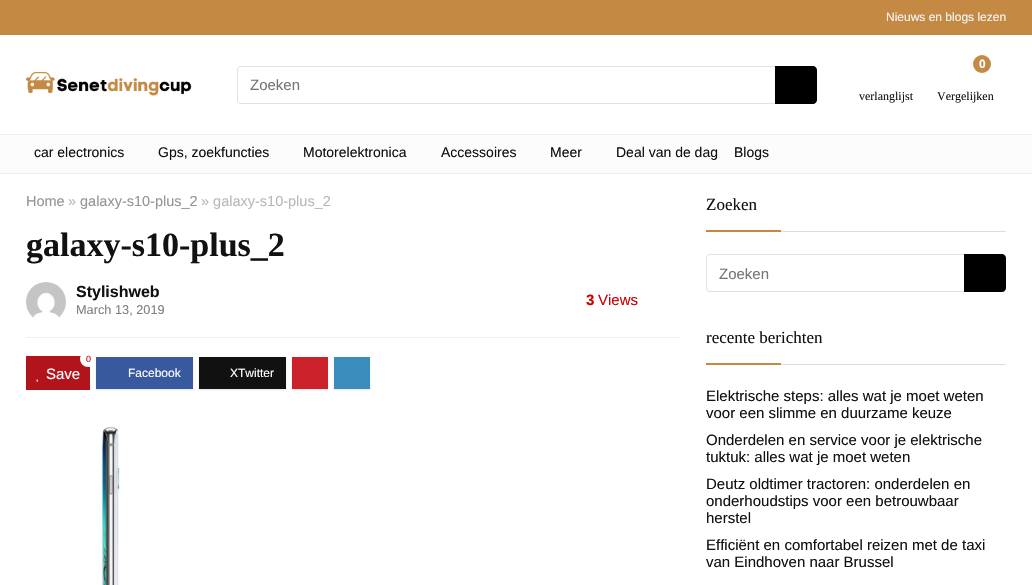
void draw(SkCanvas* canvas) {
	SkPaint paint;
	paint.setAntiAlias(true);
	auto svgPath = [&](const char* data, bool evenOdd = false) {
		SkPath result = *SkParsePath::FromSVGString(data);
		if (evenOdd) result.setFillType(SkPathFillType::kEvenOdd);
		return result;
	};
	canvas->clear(0xffffffff);
	paint.setColor(0xffc48a44);
	canvas->drawRect(SkRect::MakeXYWH(0, 0, 1032, 35), paint);
	SkFont f1(fontMgr->matchFamilyStyle("Liberation Sans", SkFontStyle::Normal()), 12);
	f1.setSubpixel(true);
	paint.setColor(0xfff4f4f4);
	canvas->drawString("Nieuws en blogs lezen", 886, 21, f1, paint);
	canvas->drawImageRect(SkImages::DeferredFromEncodedData(SkData::MakeFromFileName("img1.png")), SkRect::MakeXYWH(26, 71, 166, 25), SkSamplingOptions());
	paint.setColor(0xffe1e1e1);
	canvas->drawPath(svgPath("M241 66H775V104H241C239 104 237 102 237 100V70C237 68 239 66 241 66ZM241 67H775V103H241C239 103 238 102 238 100V70C238 68 239 67 241 67Z", true), paint);
	SkFont f2(fontMgr->matchFamilyStyle("Liberation Sans", SkFontStyle::Normal()), 15);
	f2.setSubpixel(true);
	paint.setColor(0xff757575);
	canvas->drawString("Zoeken", 250, 90, f2, paint);
	paint.setColor(0xff000000);
	canvas->drawPath(svgPath("M775 66H813C815 66 817 68 817 70V100C817 102 815 104 813 104H775Z"), paint);
	SkFont f3(fontMgr->matchFamilyStyle("Liberation Serif", SkFontStyle::Normal()), 12);
	f3.setSubpixel(true);
	paint.setColor(0xff111111);
	canvas->drawString("verlanglijst", 859, 100, f3, paint);
	paint.setColor(0xffc48a44);
	canvas->drawCircle(982, 64, 9, paint);
	SkFont f4(fontMgr->matchFamilyStyle("Liberation Sans", SkFontStyle::Bold()), 12);
	f4.setSubpixel(true);
	paint.setColor(0xffffffff);
	canvas->drawString("0", 979, 68, f4, paint);
	paint.setColor(0xff111111);
	canvas->drawString("Vergelijken", 937, 100, f3, paint);
	paint.setColor(0xfffcfcfc);
	canvas->drawRect(SkRect::MakeXYWH(0, 135, 1032, 38), paint);
	paint.setColor(0xffeeeeee);
	canvas->drawRect(SkRect::MakeXYWH(0, 134, 1032, 1), paint);
	canvas->drawRect(SkRect::MakeXYWH(0, 173, 1032, 1), paint);
	SkFont f5(fontMgr->matchFamilyStyle("Liberation Sans", SkFontStyle::Normal()), 14);
	f5.setSubpixel(true);
	paint.setColor(0xff111111);
	canvas->drawString("car electronics", 34, 157, f5, paint);
	canvas->drawString("Gps, zoekfuncties", 158, 157, f5, paint);
	canvas->drawString("Motorelektronica", 303, 157, f5, paint);
	canvas->drawString("Accessoires", 441, 157, f5, paint);
	canvas->drawString("Meer", 550, 157, f5, paint);
	canvas->drawString("Deal van de dag", 616, 157, f5, paint);
	canvas->drawString("Blogs", 734, 157, f5, paint);
	SkFont f6(fontMgr->matchFamilyStyle("Liberation Sans", SkFontStyle::Normal()), 14.5);
	f6.setSubpixel(true);
	paint.setColor(0xff949494);
	canvas->drawString("Home", 26, 206, f6, paint);
	paint.setColor(0xffb8b8b8);
	canvas->drawString("»", 68, 206, f6, paint);
	paint.setColor(0xff949494);
	canvas->drawString("galaxy-s10-plus_2", 80, 206, f6, paint);
	paint.setColor(0xffb8b8b8);
	canvas->drawString("» galaxy-s10-plus_2", 201, 206, f6, paint);
	SkFont f7(fontMgr->matchFamilyStyle("Liberation Serif", SkFontStyle::Bold()), 34);
	f7.setSubpixel(true);
	paint.setColor(0xff111111);
	canvas->drawString("galaxy-s10-plus_2", 26, 256, f7, paint);
	paint.setColor(0xfff0f0f0);
	canvas->drawRect(SkRect::MakeXYWH(26, 337, 655, 1), paint);
	canvas->drawImageRect(SkImages::DeferredFromEncodedData(SkData::MakeFromFileName("img2.png")), SkRect::MakeXYWH(26, 282, 40, 36), SkSamplingOptions());
	SkFont f8(fontMgr->matchFamilyStyle("Liberation Sans", SkFontStyle::Bold()), 16);
	f8.setSubpixel(true);
	paint.setColor(0xff111111);
	canvas->drawString("Stylishweb", 76, 297, f8, paint);
	SkFont f9(fontMgr->matchFamilyStyle("Liberation Sans", SkFontStyle::Normal()), 12.75);
	f9.setSubpixel(true);
	paint.setColor(0xff808080);
	canvas->drawString("March 13, 2019", 76, 314, f9, paint);
	SkFont f10(fontMgr->matchFamilyStyle("Liberation Sans", SkFontStyle::Bold()), 15);
	f10.setSubpixel(true);
	paint.setColor(0xffcc0000);
	canvas->drawString("3", 586, 305, f10, paint);
	canvas->drawString("Views", 598, 305, f2, paint);
	paint.setColor(0xffb1141a);
	canvas->drawRect(SkRect::MakeXYWH(26, 356, 64, 34), paint);
	canvas->save();
	canvas->clipRect(SkRect::MakeXYWH(26, 353, 655, 43));
	paint.setColor(0xffffffff);
	canvas->drawRoundRect(SkRect::MakeXYWH(80, 351, 17, 16), 8, 8, paint);
	canvas->restore();
	SkFont f11(fontMgr->matchFamilyStyle("Liberation Sans", SkFontStyle::Normal()), 9);
	f11.setSubpixel(true);
	paint.setColor(0xffcc0000);
	canvas->drawString("0", 86, 362, f11, paint);
	paint.setColor(0xffffffff);
	canvas->drawString("Save", 46, 379, f2, paint);
	canvas->drawImageRect(SkImages::DeferredFromEncodedData(SkData::MakeFromFileName("img3.png")), SkRect::MakeXYWH(36, 379, 2, 4), SkSamplingOptions());
	paint.setColor(0xffe4e4e4);
	paint.setMaskFilter(SkMaskFilter::MakeBlur(kNormal_SkBlurStyle, 1));
	canvas->drawRect(SkRect::MakeXYWH(96, 358, 97, 32), paint);
	paint.setMaskFilter(nullptr);
	paint.setColor(0xff39599f);
	canvas->drawRect(SkRect::MakeXYWH(96, 357, 97, 32), paint);
	paint.setColor(0xffffffff);
	canvas->drawString("Facebook", 128, 377, f1, paint);
	paint.setColor(0xffe4e4e4);
	paint.setMaskFilter(SkMaskFilter::MakeBlur(kNormal_SkBlurStyle, 1));
	canvas->drawRect(SkRect::MakeXYWH(199, 358, 87, 32), paint);
	paint.setMaskFilter(nullptr);
	paint.setColor(0xff111111);
	canvas->drawRect(SkRect::MakeXYWH(199, 357, 87, 32), paint);
	paint.setColor(0xffffffff);
	canvas->drawString("XTwitter", 230, 377, f1, paint);
	paint.setColor(0xffe4e4e4);
	paint.setMaskFilter(SkMaskFilter::MakeBlur(kNormal_SkBlurStyle, 1));
	canvas->drawRect(SkRect::MakeXYWH(292, 358, 36, 32), paint);
	paint.setMaskFilter(nullptr);
	paint.setColor(0xffca212a);
	canvas->drawRect(SkRect::MakeXYWH(292, 357, 36, 32), paint);
	paint.setColor(0xffe4e4e4);
	paint.setMaskFilter(SkMaskFilter::MakeBlur(kNormal_SkBlurStyle, 1));
	canvas->drawRect(SkRect::MakeXYWH(334, 358, 36, 32), paint);
	paint.setMaskFilter(nullptr);
	paint.setColor(0xff3b8dbd);
	canvas->drawRect(SkRect::MakeXYWH(334, 357, 36, 32), paint);
	canvas->drawImageRect(SkImages::DeferredFromEncodedData(SkData::MakeFromFileName("img4.png")), SkRect::MakeXYWH(98, 426, 22, 159), SkSamplingOptions());
	paint.setColor(0xffdddddd);
	canvas->drawRect(SkRect::MakeXYWH(781, 231, 225, 1), paint);
	SkFont f12(fontMgr->matchFamilyStyle("Liberation Serif", SkFontStyle::Normal()), 17);
	f12.setSubpixel(true);
	paint.setColor(0xff111111);
	canvas->drawString("Zoeken", 706, 210, f12, paint);
	paint.setColor(0xffc48a44);
	canvas->drawRect(SkRect::MakeXYWH(706, 230, 75, 2), paint);
	paint.setStroke(true);
	paint.setStrokeWidth(1);
	paint.setColor(0xffe1e1e1);
	canvas->drawRoundRect(SkRect::MakeXYWH(706.5, 254.5, 299, 37), 3.5, 3.5, paint);
	paint.setStroke(false);
	paint.setColor(0xff757575);
	canvas->drawString("Zoeken", 719, 279, f2, paint);
	paint.setColor(0xff000000);
	canvas->drawPath(svgPath("M964 254H1002C1004 254 1006 256 1006 258V288C1006 290 1004 292 1002 292H964Z"), paint);
	paint.setColor(0xffdddddd);
	canvas->drawRect(SkRect::MakeXYWH(781, 364, 225, 1), paint);
	paint.setColor(0xff111111);
	canvas->drawString("recente berichten", 706, 343, f12, paint);
	paint.setColor(0xffc48a44);
	canvas->drawRect(SkRect::MakeXYWH(706, 363, 75, 2), paint);
	paint.setColor(0xff111111);
	canvas->drawString("Elektrische steps: alles wat je moet weten", 706, 401, f2, paint);
	canvas->drawString("voor een slimme en duurzame keuze", 706, 418, f2, paint);
	canvas->drawString("Onderdelen en service voor je elektrische", 706, 445, f2, paint);
	canvas->drawString("tuktuk: alles wat je moet weten", 706, 462, f2, paint);
	canvas->drawString("Deutz oldtimer tractoren: onderdelen en", 706, 489, f2, paint);
	canvas->drawString("onderhoudstips voor een betrouwbaar", 706, 506, f2, paint);
	canvas->drawString("herstel", 706, 523, f2, paint);
	canvas->drawString("Efficiënt en comfortabel reizen met de taxi", 706, 550, f2, paint);
	canvas->drawString("van Eindhoven naar Brussel", 706, 567, f2, paint);
}
